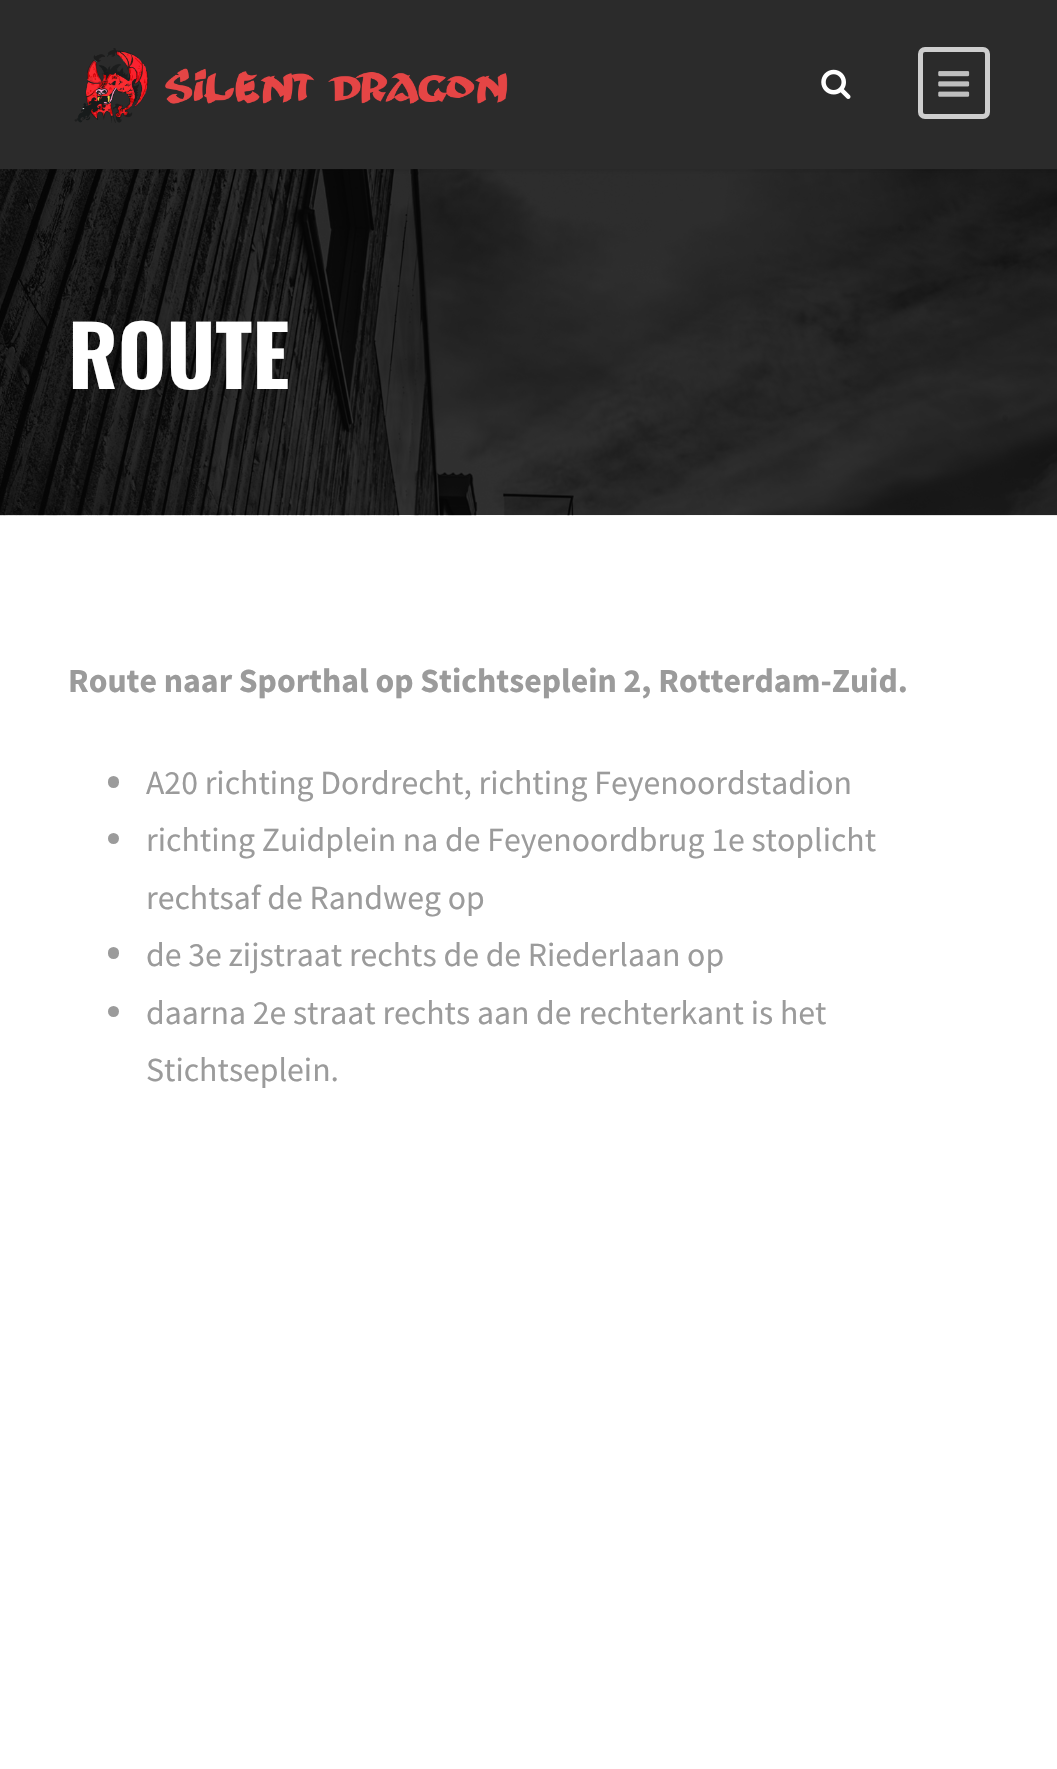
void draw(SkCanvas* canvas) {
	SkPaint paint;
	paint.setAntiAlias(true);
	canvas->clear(0xffffffff);
	canvas->drawImageRect(SkImages::DeferredFromEncodedData(SkData::MakeFromFileName("img4.png")), SkRect::MakeXYWH(0, 169, 1057, 347), SkSamplingOptions());
	paint.setColor(0x1a000000);
	paint.setMaskFilter(SkMaskFilter::MakeBlur(kNormal_SkBlurStyle, 2));
	canvas->drawRect(SkRect::MakeXYWH(0, 2, 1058, 169), paint);
	paint.setMaskFilter(nullptr);
	paint.setColor(0xff2b2b2b);
	canvas->drawRect(SkRect::MakeXYWH(0, 0, 1057, 169), paint);
	canvas->drawImageRect(SkImages::DeferredFromEncodedData(SkData::MakeFromFileName("img1.png")), SkRect::MakeXYWH(74, 48, 434, 75), SkSamplingOptions());
	canvas->drawImageRect(SkImages::DeferredFromEncodedData(SkData::MakeFromFileName("img2.png")), SkRect::MakeXYWH(821, 69, 30, 30), SkSamplingOptions());
	paint.setStroke(true);
	paint.setStrokeWidth(5);
	paint.setColor(0xffcecece);
	canvas->drawRoundRect(SkRect::MakeXYWH(920.5, 49.5, 67, 67), 4.5, 4.5, paint);
	canvas->drawImageRect(SkImages::DeferredFromEncodedData(SkData::MakeFromFileName("img3.png")), SkRect::MakeXYWH(938, 71, 32, 26), SkSamplingOptions());
	SkFont f1(fontMgr->matchFamilyStyle("Oswald", SkFontStyle::Bold()), 83);
	f1.setSubpixel(true);
	paint.setStroke(false);
	paint.setColor(0xffffffff);
	canvas->drawString("ROUTE", 68, 389, f1, paint);
	SkFont f2(fontMgr->matchFamilyStyle("Source Sans Pro", SkFontStyle::Bold()), 33.75);
	f2.setSubpixel(true);
	paint.setColor(0xff9b9b9b);
	canvas->drawString("Route naar Sporthal op Stichtseplein 2, Rotterdam-Zuid.", 68, 692, f2, paint);
	canvas->drawRoundRect(SkRect::MakeXYWH(108, 776, 11, 12), 5.5, 5.5, paint);
	SkFont f3(fontMgr->matchFamilyStyle("Source Sans Pro", SkFontStyle::Normal()), 33.75);
	f3.setSubpixel(true);
	canvas->drawString("A20 richting Dordrecht, richting Feyenoordstadion", 146, 794, f3, paint);
	canvas->drawCircle(113.5, 838.5, 5.5, paint);
	canvas->drawString("richting Zuidplein na de Feyenoordbrug 1e stoplicht", 146, 851, f3, paint);
	canvas->drawString("rechtsaf de Randweg op", 146, 909, f3, paint);
	canvas->drawRoundRect(SkRect::MakeXYWH(108, 947, 11, 12), 5.5, 5.5, paint);
	canvas->drawString("de 3e zijstraat rechts de de Riederlaan op", 146, 966, f3, paint);
	canvas->drawCircle(113.5, 1011.5, 5.5, paint);
	canvas->drawString("daarna 2e straat rechts aan de rechterkant is het", 146, 1024, f3, paint);
	canvas->drawString("Stichtseplein.", 146, 1081, f3, paint);
}
